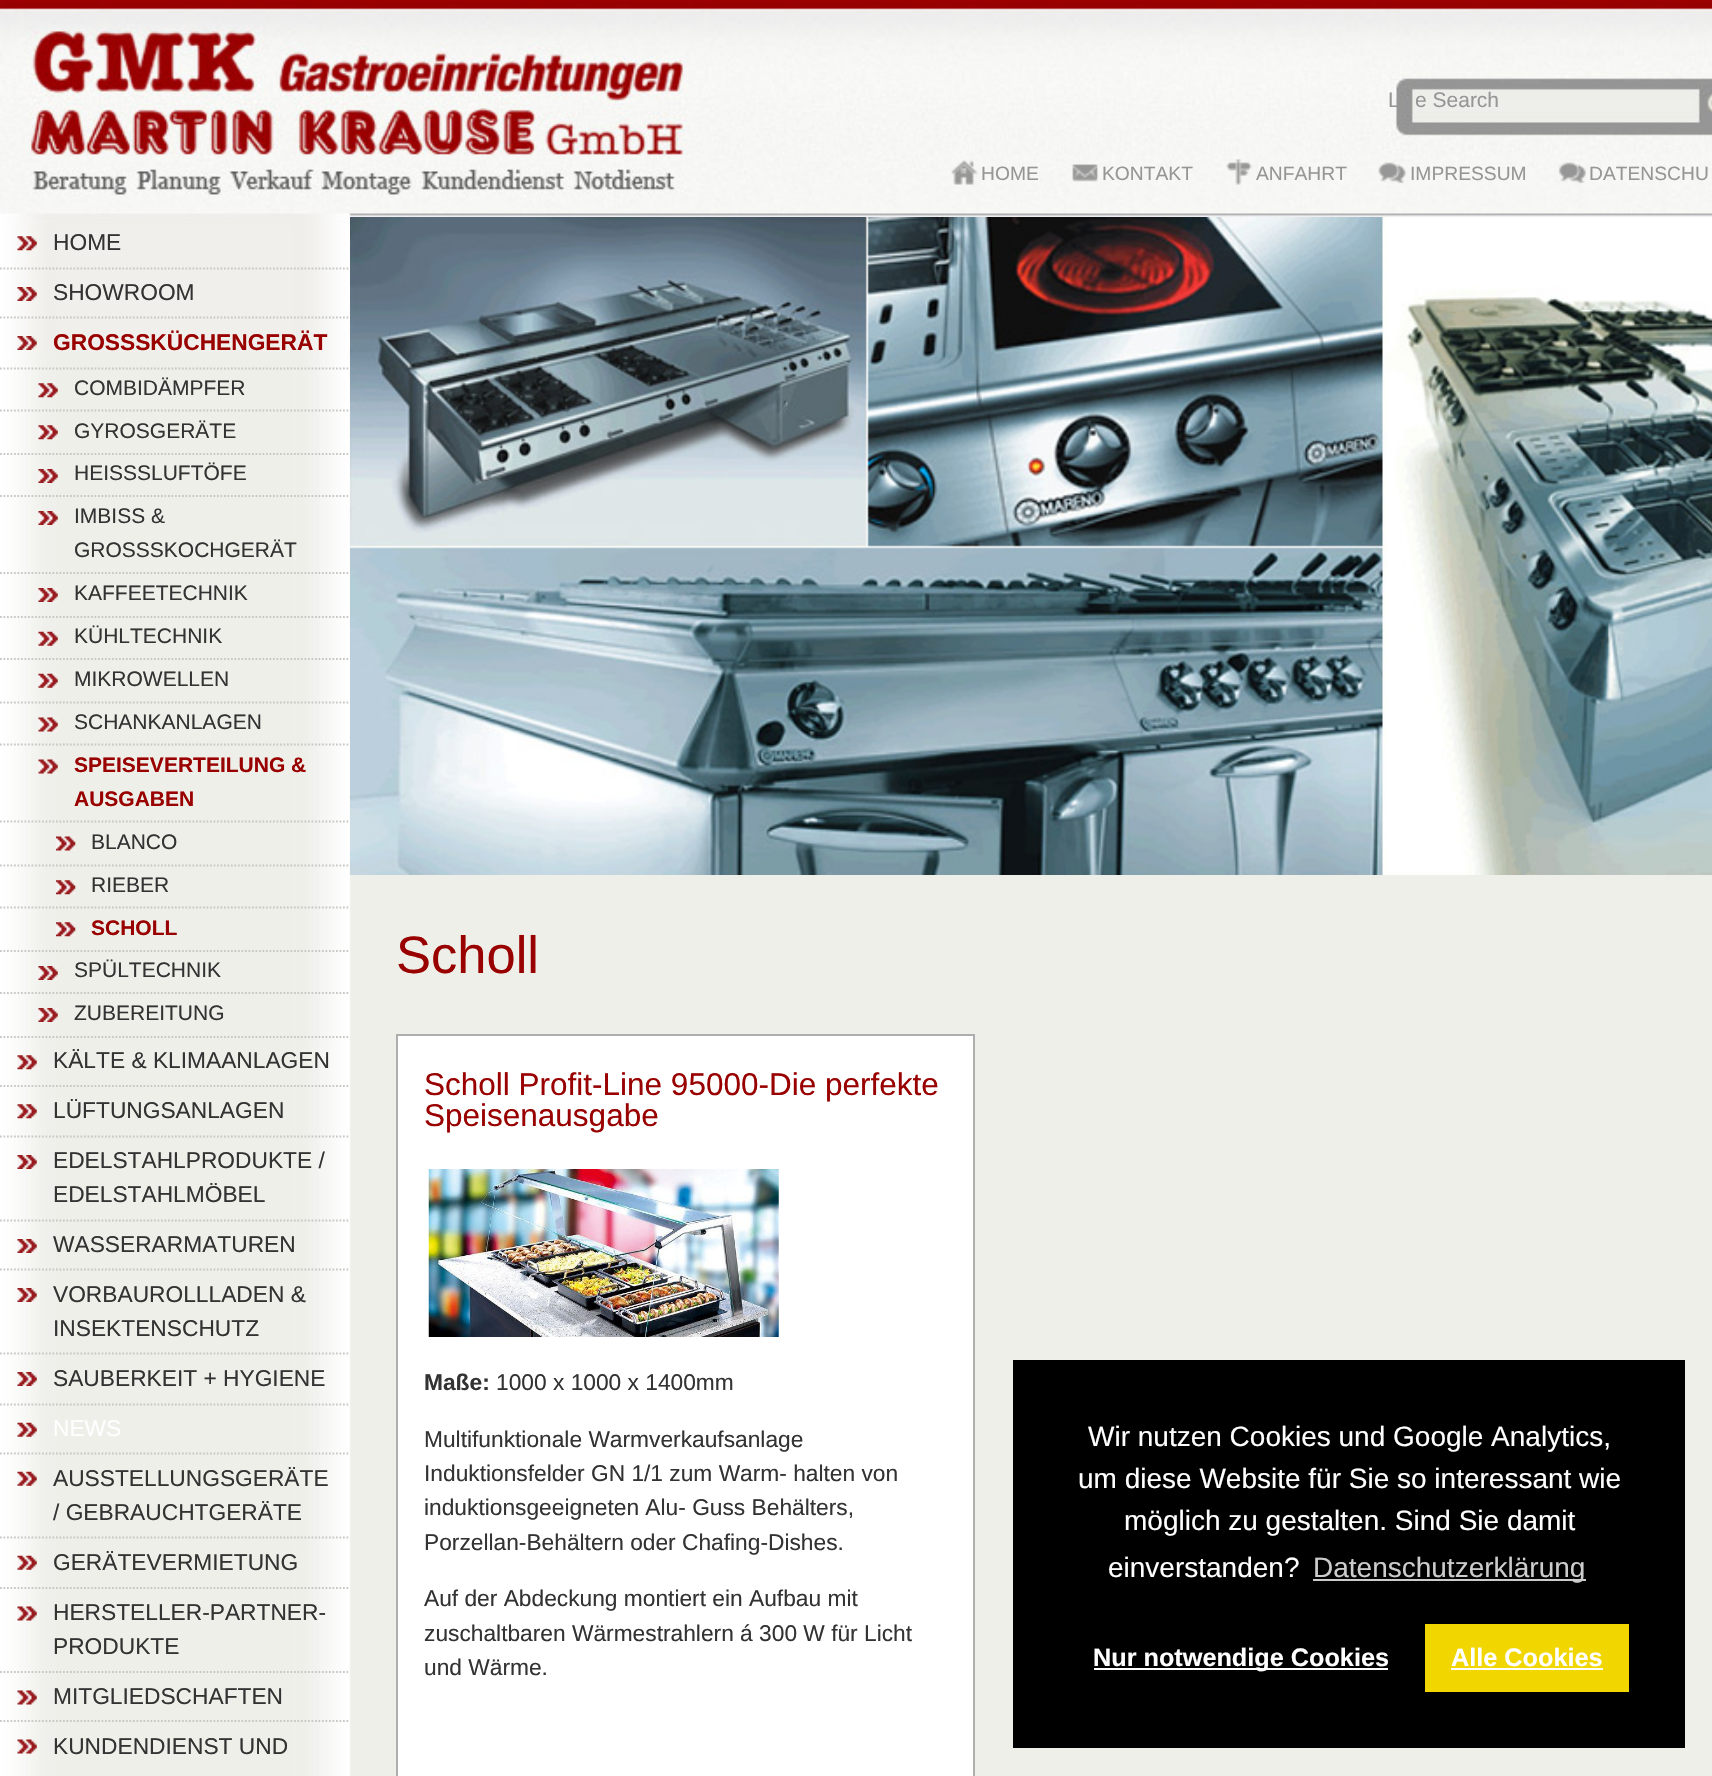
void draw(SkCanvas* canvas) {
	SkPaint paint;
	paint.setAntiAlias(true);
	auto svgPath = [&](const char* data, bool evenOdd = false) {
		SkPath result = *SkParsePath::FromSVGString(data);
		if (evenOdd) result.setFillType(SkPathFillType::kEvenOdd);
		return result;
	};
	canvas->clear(0xffffffff);
	canvas->drawImageRect(SkImages::DeferredFromEncodedData(SkData::MakeFromFileName("img1.png")), SkRect::MakeXYWH(0, 353, 1712, 1423), SkSamplingOptions());
	canvas->drawImageRect(SkImages::DeferredFromEncodedData(SkData::MakeFromFileName("img2.png")), SkRect::MakeXYWH(0, 0, 1712, 353), SkSamplingOptions());
	SkFont f1(fontMgr->matchFamilyStyle("Liberation Sans", SkFontStyle::Normal()), 21);
	f1.setSubpixel(true);
	paint.setColor(0xff969696);
	canvas->drawString("L", 1388, 107, f1, paint);
	canvas->drawString("e Search", 1415, 107, f1, paint);
	canvas->drawImageRect(SkImages::DeferredFromEncodedData(SkData::MakeFromFileName("img3.png")), SkRect::MakeXYWH(951, 160, 27, 25), SkSamplingOptions());
	SkFont f2(fontMgr->matchFamilyStyle("Liberation Sans", SkFontStyle::Normal()), 19.25);
	f2.setSubpixel(true);
	canvas->drawString("HOME", 981, 180, f2, paint);
	canvas->drawImageRect(SkImages::DeferredFromEncodedData(SkData::MakeFromFileName("img4.png")), SkRect::MakeXYWH(1072, 164, 26, 18), SkSamplingOptions());
	canvas->drawString("KONTAKT", 1102, 180, f2, paint);
	canvas->drawImageRect(SkImages::DeferredFromEncodedData(SkData::MakeFromFileName("img5.png")), SkRect::MakeXYWH(1226, 159, 26, 26), SkSamplingOptions());
	canvas->drawString("ANFAHRT", 1256, 180, f2, paint);
	canvas->drawImageRect(SkImages::DeferredFromEncodedData(SkData::MakeFromFileName("img6.png")), SkRect::MakeXYWH(1378, 162, 28, 22), SkSamplingOptions());
	canvas->drawString("IMPRESSUM", 1410, 180, f2, paint);
	canvas->drawImageRect(SkImages::DeferredFromEncodedData(SkData::MakeFromFileName("img7.png")), SkRect::MakeXYWH(1558, 162, 28, 22), SkSamplingOptions());
	canvas->drawString("DATENSCHU", 1589, 180, f2, paint);
	canvas->drawImageRect(SkImages::DeferredFromEncodedData(SkData::MakeFromFileName("img8.png")), SkRect::MakeXYWH(17, 236, 20, 15), SkSamplingOptions());
	paint.setStroke(true);
	paint.setStrokeWidth(1.8);
	paint.setColor(0xffc8c8c4);
	paint.setPathEffect(SkDashPathEffect::Make({{1.75f, 1.75f}}, 0));
	canvas->drawPath(svgPath("M0 268.5H350"), paint);
	paint.setPathEffect(nullptr);
	SkFont f3(fontMgr->matchFamilyStyle("Liberation Sans", SkFontStyle::Normal()), 22.75);
	f3.setSubpixel(true);
	paint.setStroke(false);
	paint.setColor(0xff333333);
	canvas->drawString("HOME", 53, 250, f3, paint);
	canvas->drawImageRect(SkImages::DeferredFromEncodedData(SkData::MakeFromFileName("img9.png")), SkRect::MakeXYWH(17, 287, 20, 14), SkSamplingOptions());
	paint.setStroke(true);
	paint.setColor(0xffc8c8c4);
	paint.setPathEffect(SkDashPathEffect::Make({{1.75f, 1.75f}}, 0));
	canvas->drawPath(svgPath("M0 317.5H350"), paint);
	paint.setPathEffect(nullptr);
	paint.setStroke(false);
	paint.setColor(0xff333333);
	canvas->drawString("SHOWROOM", 53, 300, f3, paint);
	canvas->drawImageRect(SkImages::DeferredFromEncodedData(SkData::MakeFromFileName("img9.png")), SkRect::MakeXYWH(17, 336, 20, 14), SkSamplingOptions());
	paint.setStroke(true);
	paint.setColor(0xffc8c8c4);
	paint.setPathEffect(SkDashPathEffect::Make({{1.75f, 1.75f}}, 0));
	canvas->drawPath(svgPath("M0 368.5H350"), paint);
	paint.setPathEffect(nullptr);
	SkFont f4(fontMgr->matchFamilyStyle("Liberation Sans", SkFontStyle::Bold()), 22.75);
	f4.setSubpixel(true);
	paint.setStroke(false);
	paint.setColor(0xff990000);
	canvas->drawString("GROSSSKÜCHENGERÄT", 53, 350, f4, paint);
	canvas->drawImageRect(SkImages::DeferredFromEncodedData(SkData::MakeFromFileName("img10.png")), SkRect::MakeXYWH(38, 383, 20, 15), SkSamplingOptions());
	paint.setStroke(true);
	paint.setColor(0xffc8c8c4);
	paint.setPathEffect(SkDashPathEffect::Make({{1.75f, 1.75f}}, 0));
	canvas->drawPath(svgPath("M0 410.5H350"), paint);
	paint.setPathEffect(nullptr);
	paint.setStroke(false);
	paint.setColor(0xff333333);
	canvas->drawString("COMBIDÄMPFER", 74, 395, f1, paint);
	canvas->drawImageRect(SkImages::DeferredFromEncodedData(SkData::MakeFromFileName("img10.png")), SkRect::MakeXYWH(38, 425, 20, 15), SkSamplingOptions());
	paint.setStroke(true);
	paint.setColor(0xffc8c8c4);
	paint.setPathEffect(SkDashPathEffect::Make({{1.75f, 1.75f}}, 0));
	canvas->drawPath(svgPath("M0 454H350"), paint);
	paint.setPathEffect(nullptr);
	paint.setStroke(false);
	paint.setColor(0xff333333);
	canvas->drawString("GYROSGERÄTE", 74, 438, f1, paint);
	canvas->drawImageRect(SkImages::DeferredFromEncodedData(SkData::MakeFromFileName("img11.png")), SkRect::MakeXYWH(38, 469, 20, 14), SkSamplingOptions());
	paint.setStroke(true);
	paint.setColor(0xffc8c8c4);
	paint.setPathEffect(SkDashPathEffect::Make({{1.75f, 1.75f}}, 0));
	canvas->drawPath(svgPath("M0 496H350"), paint);
	paint.setPathEffect(nullptr);
	paint.setStroke(false);
	paint.setColor(0xff333333);
	canvas->drawString("HEISSSLUFTÖFE", 74, 480, f1, paint);
	canvas->drawImageRect(SkImages::DeferredFromEncodedData(SkData::MakeFromFileName("img11.png")), SkRect::MakeXYWH(38, 511, 20, 14), SkSamplingOptions());
	paint.setStroke(true);
	paint.setColor(0xffc8c8c4);
	paint.setPathEffect(SkDashPathEffect::Make({{1.75f, 1.75f}}, 0));
	canvas->drawPath(svgPath("M0 573H350"), paint);
	paint.setPathEffect(nullptr);
	paint.setStroke(false);
	paint.setColor(0xff333333);
	canvas->drawString("IMBISS &", 74, 523, f1, paint);
	canvas->drawString("GROSSSKOCHGERÄT", 74, 557, f1, paint);
	canvas->drawImageRect(SkImages::DeferredFromEncodedData(SkData::MakeFromFileName("img11.png")), SkRect::MakeXYWH(38, 588, 20, 14), SkSamplingOptions());
	paint.setStroke(true);
	paint.setColor(0xffc8c8c4);
	paint.setPathEffect(SkDashPathEffect::Make({{1.75f, 1.75f}}, 0));
	canvas->drawPath(svgPath("M0 617H350"), paint);
	paint.setPathEffect(nullptr);
	paint.setStroke(false);
	paint.setColor(0xff333333);
	canvas->drawString("KAFFEETECHNIK", 74, 600, f1, paint);
	canvas->drawImageRect(SkImages::DeferredFromEncodedData(SkData::MakeFromFileName("img12.png")), SkRect::MakeXYWH(38, 631, 20, 15), SkSamplingOptions());
	paint.setStroke(true);
	paint.setColor(0xffc8c8c4);
	paint.setPathEffect(SkDashPathEffect::Make({{1.75f, 1.75f}}, 0));
	canvas->drawPath(svgPath("M0 659H350"), paint);
	paint.setPathEffect(nullptr);
	paint.setStroke(false);
	paint.setColor(0xff333333);
	canvas->drawString("KÜHLTECHNIK", 74, 643, f1, paint);
	canvas->drawImageRect(SkImages::DeferredFromEncodedData(SkData::MakeFromFileName("img12.png")), SkRect::MakeXYWH(38, 673, 20, 15), SkSamplingOptions());
	paint.setStroke(true);
	paint.setColor(0xffc8c8c4);
	paint.setPathEffect(SkDashPathEffect::Make({{1.75f, 1.75f}}, 0));
	canvas->drawPath(svgPath("M0 702.5H350"), paint);
	paint.setPathEffect(nullptr);
	paint.setStroke(false);
	paint.setColor(0xff333333);
	canvas->drawString("MIKROWELLEN", 74, 686, f1, paint);
	canvas->drawImageRect(SkImages::DeferredFromEncodedData(SkData::MakeFromFileName("img13.png")), SkRect::MakeXYWH(38, 717, 20, 15), SkSamplingOptions());
	paint.setStroke(true);
	paint.setColor(0xffc8c8c4);
	paint.setPathEffect(SkDashPathEffect::Make({{1.75f, 1.75f}}, 0));
	canvas->drawPath(svgPath("M0 744.5H350"), paint);
	paint.setPathEffect(nullptr);
	paint.setStroke(false);
	paint.setColor(0xff333333);
	canvas->drawString("SCHANKANLAGEN", 74, 729, f1, paint);
	canvas->drawImageRect(SkImages::DeferredFromEncodedData(SkData::MakeFromFileName("img13.png")), SkRect::MakeXYWH(38, 759, 20, 15), SkSamplingOptions());
	paint.setStroke(true);
	paint.setColor(0xffc8c8c4);
	paint.setPathEffect(SkDashPathEffect::Make({{1.75f, 1.75f}}, 0));
	canvas->drawPath(svgPath("M0 821.5H350"), paint);
	paint.setPathEffect(nullptr);
	SkFont f5(fontMgr->matchFamilyStyle("Liberation Sans", SkFontStyle::Bold()), 21);
	f5.setSubpixel(true);
	paint.setStroke(false);
	paint.setColor(0xff990000);
	canvas->drawString("SPEISEVERTEILUNG &", 74, 772, f5, paint);
	canvas->drawString("AUSGABEN", 74, 806, f5, paint);
	canvas->drawImageRect(SkImages::DeferredFromEncodedData(SkData::MakeFromFileName("img14.png")), SkRect::MakeXYWH(56, 836, 20, 15), SkSamplingOptions());
	paint.setStroke(true);
	paint.setColor(0xffc8c8c4);
	paint.setPathEffect(SkDashPathEffect::Make({{1.75f, 1.75f}}, 0));
	canvas->drawPath(svgPath("M0 865.5H350"), paint);
	paint.setPathEffect(nullptr);
	paint.setStroke(false);
	paint.setColor(0xff333333);
	canvas->drawString("BLANCO", 91, 849, f1, paint);
	canvas->drawImageRect(SkImages::DeferredFromEncodedData(SkData::MakeFromFileName("img15.png")), SkRect::MakeXYWH(56, 880, 20, 15), SkSamplingOptions());
	paint.setStroke(true);
	paint.setColor(0xffc8c8c4);
	paint.setPathEffect(SkDashPathEffect::Make({{1.75f, 1.75f}}, 0));
	canvas->drawPath(svgPath("M0 907.5H350"), paint);
	paint.setPathEffect(nullptr);
	paint.setStroke(false);
	paint.setColor(0xff333333);
	canvas->drawString("RIEBER", 91, 892, f1, paint);
	canvas->drawImageRect(SkImages::DeferredFromEncodedData(SkData::MakeFromFileName("img15.png")), SkRect::MakeXYWH(56, 922, 20, 15), SkSamplingOptions());
	paint.setStroke(true);
	paint.setColor(0xffc8c8c4);
	paint.setPathEffect(SkDashPathEffect::Make({{1.75f, 1.75f}}, 0));
	canvas->drawPath(svgPath("M0 951H350"), paint);
	paint.setPathEffect(nullptr);
	paint.setStroke(false);
	paint.setColor(0xff990000);
	canvas->drawString("SCHOLL", 91, 935, f5, paint);
	canvas->drawImageRect(SkImages::DeferredFromEncodedData(SkData::MakeFromFileName("img11.png")), SkRect::MakeXYWH(38, 966, 20, 14), SkSamplingOptions());
	paint.setStroke(true);
	paint.setColor(0xffc8c8c4);
	paint.setPathEffect(SkDashPathEffect::Make({{1.75f, 1.75f}}, 0));
	canvas->drawPath(svgPath("M0 993H350"), paint);
	paint.setPathEffect(nullptr);
	paint.setStroke(false);
	paint.setColor(0xff333333);
	canvas->drawString("SPÜLTECHNIK", 74, 977, f1, paint);
	canvas->drawImageRect(SkImages::DeferredFromEncodedData(SkData::MakeFromFileName("img11.png")), SkRect::MakeXYWH(38, 1008, 20, 14), SkSamplingOptions());
	paint.setStroke(true);
	paint.setColor(0xffc8c8c4);
	paint.setPathEffect(SkDashPathEffect::Make({{1.75f, 1.75f}}, 0));
	canvas->drawPath(svgPath("M0 1037H350"), paint);
	paint.setPathEffect(nullptr);
	paint.setStroke(false);
	paint.setColor(0xff333333);
	canvas->drawString("ZUBEREITUNG", 74, 1020, f1, paint);
	canvas->drawImageRect(SkImages::DeferredFromEncodedData(SkData::MakeFromFileName("img16.png")), SkRect::MakeXYWH(17, 1055, 20, 15), SkSamplingOptions());
	paint.setStroke(true);
	paint.setColor(0xffc8c8c4);
	paint.setPathEffect(SkDashPathEffect::Make({{1.75f, 1.75f}}, 0));
	canvas->drawPath(svgPath("M0 1086H350"), paint);
	paint.setPathEffect(nullptr);
	paint.setStroke(false);
	paint.setColor(0xff333333);
	canvas->drawString("KÄLTE & KLIMAANLAGEN", 53, 1068, f3, paint);
	canvas->drawImageRect(SkImages::DeferredFromEncodedData(SkData::MakeFromFileName("img16.png")), SkRect::MakeXYWH(17, 1104, 20, 15), SkSamplingOptions());
	paint.setStroke(true);
	paint.setColor(0xffc8c8c4);
	paint.setPathEffect(SkDashPathEffect::Make({{1.75f, 1.75f}}, 0));
	canvas->drawPath(svgPath("M0 1136.5H350"), paint);
	paint.setPathEffect(nullptr);
	paint.setStroke(false);
	paint.setColor(0xff333333);
	canvas->drawString("LÜFTUNGSANLAGEN", 53, 1118, f3, paint);
	canvas->drawImageRect(SkImages::DeferredFromEncodedData(SkData::MakeFromFileName("img17.png")), SkRect::MakeXYWH(17, 1155, 20, 14), SkSamplingOptions());
	paint.setStroke(true);
	paint.setColor(0xffc8c8c4);
	paint.setPathEffect(SkDashPathEffect::Make({{1.75f, 1.75f}}, 0));
	canvas->drawPath(svgPath("M0 1220.5H350"), paint);
	paint.setPathEffect(nullptr);
	paint.setStroke(false);
	paint.setColor(0xff333333);
	canvas->drawString("EDELSTAHLPRODUKTE /", 53, 1168, f3, paint);
	canvas->drawString("EDELSTAHLMÖBEL", 53, 1202, f3, paint);
	canvas->drawImageRect(SkImages::DeferredFromEncodedData(SkData::MakeFromFileName("img17.png")), SkRect::MakeXYWH(17, 1239, 20, 14), SkSamplingOptions());
	paint.setStroke(true);
	paint.setColor(0xffc8c8c4);
	paint.setPathEffect(SkDashPathEffect::Make({{1.75f, 1.75f}}, 0));
	canvas->drawPath(svgPath("M0 1269.5H350"), paint);
	paint.setPathEffect(nullptr);
	paint.setStroke(false);
	paint.setColor(0xff333333);
	canvas->drawString("WASSERARMATUREN", 53, 1252, f3, paint);
	canvas->drawImageRect(SkImages::DeferredFromEncodedData(SkData::MakeFromFileName("img17.png")), SkRect::MakeXYWH(17, 1288, 20, 14), SkSamplingOptions());
	paint.setStroke(true);
	paint.setColor(0xffc8c8c4);
	paint.setPathEffect(SkDashPathEffect::Make({{1.75f, 1.75f}}, 0));
	canvas->drawPath(svgPath("M0 1353.5H350"), paint);
	paint.setPathEffect(nullptr);
	paint.setStroke(false);
	paint.setColor(0xff333333);
	canvas->drawString("VORBAUROLLLADEN &", 53, 1302, f3, paint);
	canvas->drawString("INSEKTENSCHUTZ", 53, 1336, f3, paint);
	canvas->drawImageRect(SkImages::DeferredFromEncodedData(SkData::MakeFromFileName("img17.png")), SkRect::MakeXYWH(17, 1372, 20, 14), SkSamplingOptions());
	paint.setStroke(true);
	paint.setColor(0xffc8c8c4);
	paint.setPathEffect(SkDashPathEffect::Make({{1.75f, 1.75f}}, 0));
	canvas->drawPath(svgPath("M0 1404.5H350"), paint);
	paint.setPathEffect(nullptr);
	paint.setStroke(false);
	paint.setColor(0xff333333);
	canvas->drawString("SAUBERKEIT + HYGIENE", 53, 1386, f3, paint);
	canvas->drawImageRect(SkImages::DeferredFromEncodedData(SkData::MakeFromFileName("img18.png")), SkRect::MakeXYWH(17, 1422, 20, 15), SkSamplingOptions());
	paint.setStroke(true);
	paint.setColor(0xffc8c8c4);
	paint.setPathEffect(SkDashPathEffect::Make({{1.75f, 1.75f}}, 0));
	canvas->drawPath(svgPath("M0 1453.5H350"), paint);
	paint.setPathEffect(nullptr);
	paint.setStroke(false);
	paint.setColor(0xffffffff);
	canvas->drawString("NEWS", 53, 1436, f3, paint);
	canvas->drawImageRect(SkImages::DeferredFromEncodedData(SkData::MakeFromFileName("img18.png")), SkRect::MakeXYWH(17, 1471, 20, 15), SkSamplingOptions());
	paint.setStroke(true);
	paint.setColor(0xffc8c8c4);
	paint.setPathEffect(SkDashPathEffect::Make({{1.75f, 1.75f}}, 0));
	canvas->drawPath(svgPath("M0 1537.5H350"), paint);
	paint.setPathEffect(nullptr);
	paint.setStroke(false);
	paint.setColor(0xff333333);
	canvas->drawString("AUSSTELLUNGSGERÄTE", 53, 1486, f3, paint);
	canvas->drawString("/ GEBRAUCHTGERÄTE", 53, 1520, f3, paint);
	canvas->drawImageRect(SkImages::DeferredFromEncodedData(SkData::MakeFromFileName("img18.png")), SkRect::MakeXYWH(17, 1555, 20, 15), SkSamplingOptions());
	paint.setStroke(true);
	paint.setColor(0xffc8c8c4);
	paint.setPathEffect(SkDashPathEffect::Make({{1.75f, 1.75f}}, 0));
	canvas->drawPath(svgPath("M0 1588H350"), paint);
	paint.setPathEffect(nullptr);
	paint.setStroke(false);
	paint.setColor(0xff333333);
	canvas->drawString("GERÄTEVERMIETUNG", 53, 1570, f3, paint);
	canvas->drawImageRect(SkImages::DeferredFromEncodedData(SkData::MakeFromFileName("img19.png")), SkRect::MakeXYWH(17, 1606, 20, 15), SkSamplingOptions());
	paint.setStroke(true);
	paint.setColor(0xffc8c8c4);
	paint.setPathEffect(SkDashPathEffect::Make({{1.75f, 1.75f}}, 0));
	canvas->drawPath(svgPath("M0 1672H350"), paint);
	paint.setPathEffect(nullptr);
	paint.setStroke(false);
	paint.setColor(0xff333333);
	canvas->drawString("HERSTELLER-PARTNER-", 53, 1620, f3, paint);
	canvas->drawString("PRODUKTE", 53, 1654, f3, paint);
	canvas->drawImageRect(SkImages::DeferredFromEncodedData(SkData::MakeFromFileName("img19.png")), SkRect::MakeXYWH(17, 1690, 20, 15), SkSamplingOptions());
	paint.setStroke(true);
	paint.setColor(0xffc8c8c4);
	paint.setPathEffect(SkDashPathEffect::Make({{1.75f, 1.75f}}, 0));
	canvas->drawPath(svgPath("M0 1721H350"), paint);
	paint.setPathEffect(nullptr);
	paint.setStroke(false);
	paint.setColor(0xff333333);
	canvas->drawString("MITGLIEDSCHAFTEN", 53, 1704, f3, paint);
	canvas->drawImageRect(SkImages::DeferredFromEncodedData(SkData::MakeFromFileName("img19.png")), SkRect::MakeXYWH(17, 1739, 20, 15), SkSamplingOptions());
	canvas->drawString("KUNDENDIENST UND", 53, 1754, f3, paint);
	canvas->drawImageRect(SkImages::DeferredFromEncodedData(SkData::MakeFromFileName("img20.png")), SkRect::MakeXYWH(350, 217, 1362, 658), SkSamplingOptions());
	SkFont f6(fontMgr->matchFamilyStyle("Liberation Sans", SkFontStyle::Normal()), 52.5);
	f6.setSubpixel(true);
	paint.setColor(0xff990000);
	canvas->drawString("Scholl", 396, 973, f6, paint);
	paint.setColor(0xffffffff);
	canvas->drawRect(SkRect::MakeXYWH(397, 1035, 577, 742), paint);
	paint.setStroke(true);
	paint.setStrokeWidth(2);
	paint.setColor(0xffaeaeae);
	canvas->drawRect(SkRect::MakeXYWH(397, 1035, 577, 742), paint);
	SkFont f7(fontMgr->matchFamilyStyle("Liberation Sans", SkFontStyle::Normal()), 31.5);
	f7.setSubpixel(true);
	paint.setStroke(false);
	paint.setColor(0xff990000);
	canvas->drawString("Scholl Profit-Line 95000-Die perfekte", 424, 1095, f7, paint);
	canvas->drawString("Speisenausgabe", 424, 1126, f7, paint);
	canvas->drawImageRect(SkImages::DeferredFromEncodedData(SkData::MakeFromFileName("img21.png")), SkRect::MakeXYWH(428, 1169, 351, 168), SkSamplingOptions());
	paint.setColor(0xff333333);
	canvas->drawString("Maße:", 424, 1390, f4, paint);
	canvas->drawString("1000 x 1000 x 1400mm", 496, 1390, f3, paint);
	canvas->drawString("Multifunktionale Warmverkaufsanlage", 424, 1447, f3, paint);
	canvas->drawString("Induktionsfelder GN 1/1 zum Warm- halten von", 424, 1481, f3, paint);
	canvas->drawString("induktionsgeeigneten Alu- Guss Behälters,", 424, 1515, f3, paint);
	canvas->drawString("Porzellan-Behältern oder Chafing-Dishes.", 424, 1550, f3, paint);
	canvas->drawString("Auf der Abdeckung montiert ein Aufbau mit", 424, 1606, f3, paint);
	canvas->drawString("zuschaltbaren Wärmestrahlern á 300 W für Licht", 424, 1641, f3, paint);
	canvas->drawString("und Wärme.", 424, 1675, f3, paint);
	paint.setColor(0xff000000);
	canvas->drawRect(SkRect::MakeXYWH(1013, 1360, 672, 388), paint);
	SkFont f8(fontMgr->matchFamilyStyle("Liberation Sans", SkFontStyle::Normal()), 28);
	f8.setSubpixel(true);
	paint.setColor(0xffffffff);
	canvas->drawString("Wir nutzen Cookies und Google Analytics,", 1088, 1446, f8, paint);
	canvas->drawString("um diese Website für Sie so interessant wie", 1078, 1488, f8, paint);
	canvas->drawString("möglich zu gestalten. Sind Sie damit", 1124, 1530, f8, paint);
	canvas->drawString("einverstanden?", 1108, 1577, f8, paint);
	paint.setColor(0xffcccccc);
	canvas->drawRect(SkRect::MakeXYWH(1313, 1579, 273, 2), paint);
	canvas->drawString("Datenschutzerklärung", 1313, 1577, f8, paint);
	paint.setColor(0xffffffff);
	canvas->drawRect(SkRect::MakeXYWH(1094, 1668, 294, 2), paint);
	SkFont f9(fontMgr->matchFamilyStyle("Liberation Sans", SkFontStyle::Bold()), 25.25);
	f9.setSubpixel(true);
	canvas->drawString("Nur notwendige Cookies", 1093, 1666, f9, paint);
	paint.setColor(0xfff1d600);
	canvas->drawRect(SkRect::MakeXYWH(1425, 1624, 204, 68), paint);
	paint.setColor(0xffffffff);
	canvas->drawString("Alle Cookies", 1451, 1666, f9, paint);
	canvas->drawRect(SkRect::MakeXYWH(1451, 1668, 152, 2), paint);
}
